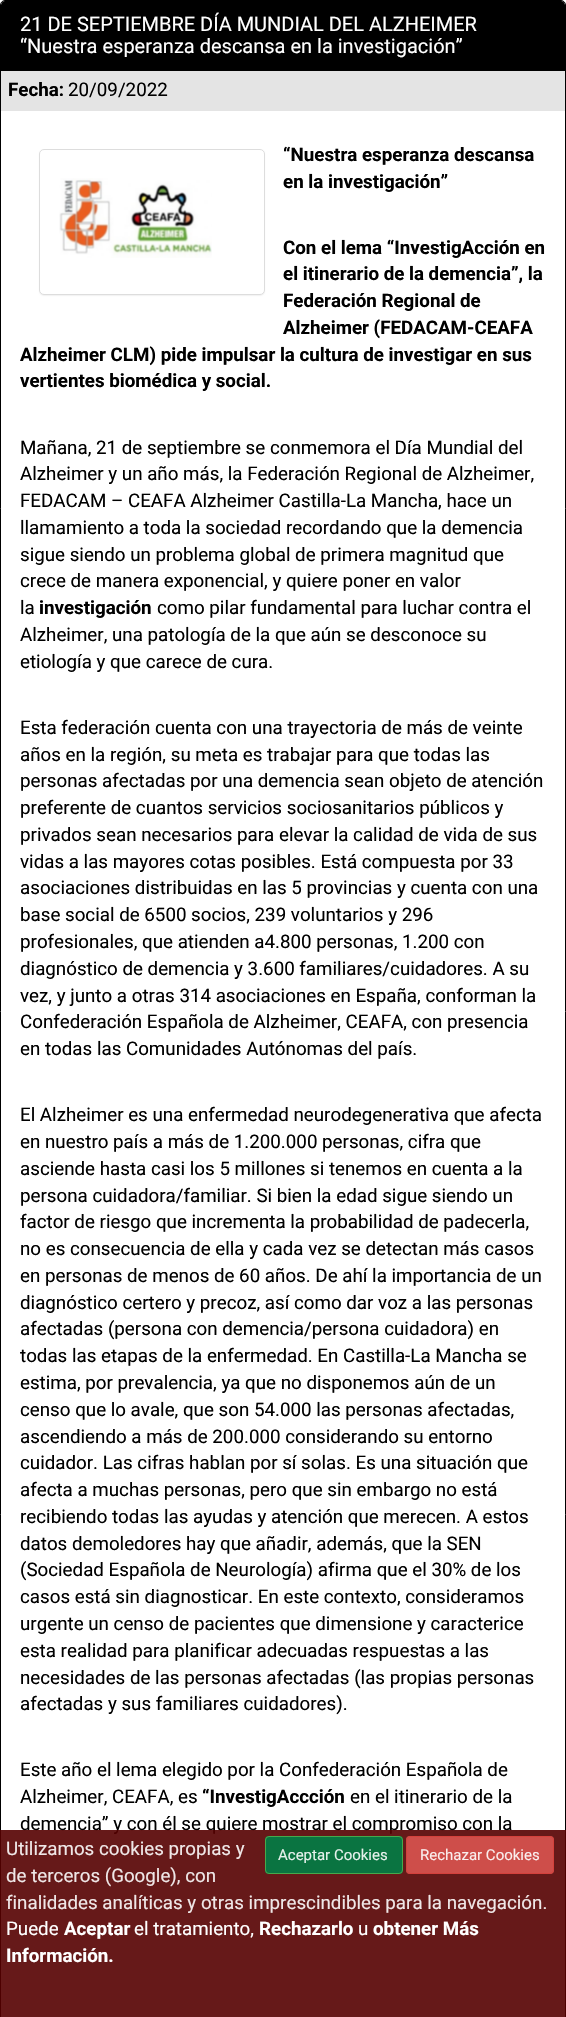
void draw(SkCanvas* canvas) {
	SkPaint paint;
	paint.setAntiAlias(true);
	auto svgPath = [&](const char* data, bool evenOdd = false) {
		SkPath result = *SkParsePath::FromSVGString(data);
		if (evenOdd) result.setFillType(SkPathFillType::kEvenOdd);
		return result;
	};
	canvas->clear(0xffffffff);
	paint.setStroke(true);
	paint.setStrokeWidth(1);
	paint.setColor(0xff000000);
	canvas->drawRoundRect(SkRect::MakeXYWH(0.5, 0.5, 565, 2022), 4.5, 4.5, paint);
	paint.setStroke(false);
	canvas->drawPath(svgPath("M5 1H561C563 1 565 3 565 5V71H1V5C1 3 3 1 5 1Z"), paint);
	SkFont f1(fontMgr->matchFamilyStyle("Roboto", SkFontStyle::Normal()), 20);
	f1.setSubpixel(true);
	paint.setColor(0xffffffff);
	canvas->drawString("21 DE SEPTIEMBRE DÍA MUNDIAL DEL ALZHEIMER", 20, 31, f1, paint);
	canvas->drawString("“Nuestra esperanza descansa en la investigación”", 20, 53, f1, paint);
	paint.setColor(0xffe4e4e4);
	canvas->drawRect(SkRect::MakeXYWH(1, 71, 564, 40), paint);
	SkFont f2(fontMgr->matchFamilyStyle("Roboto", SkFontStyle::Bold()), 18.75);
	f2.setSubpixel(true);
	paint.setColor(0xff000000);
	canvas->drawString("Fecha:", 8, 96, f2, paint);
	SkFont f3(fontMgr->matchFamilyStyle("Roboto", SkFontStyle::Normal()), 18.75);
	f3.setSubpixel(true);
	canvas->drawString("20/09/2022", 68, 96, f3, paint);
	canvas->drawString("“Nuestra esperanza descansa", 283, 161, f2, paint);
	canvas->drawString("en la investigación”", 283, 188, f2, paint);
	canvas->drawString("Con el lema “InvestigAcción en", 283, 254, f2, paint);
	canvas->drawString("el itinerario de la demencia”, la", 283, 280, f2, paint);
	canvas->drawString("Federación Regional de", 283, 307, f2, paint);
	canvas->drawString("Alzheimer (FEDACAM-CEAFA", 283, 334, f2, paint);
	canvas->drawString("Alzheimer CLM) pide impulsar la cultura de investigar en sus", 20, 361, f2, paint);
	canvas->drawString("vertientes biomédica y social.", 20, 387, f2, paint);
	canvas->drawString("Mañana, 21 de septiembre se conmemora el Día Mundial del", 20, 454, f3, paint);
	canvas->drawString("Alzheimer y un año más, la Federación Regional de Alzheimer,", 20, 480, f3, paint);
	canvas->drawString("FEDACAM – CEAFA Alzheimer Castilla-La Mancha, hace un", 20, 507, f3, paint);
	canvas->drawString("llamamiento a toda la sociedad recordando que la demencia", 20, 534, f3, paint);
	canvas->drawString("sigue siendo un problema global de primera magnitud que", 20, 561, f3, paint);
	canvas->drawString("crece de manera exponencial, y quiere poner en valor", 20, 587, f3, paint);
	canvas->drawString("la", 20, 614, f3, paint);
	canvas->drawString("investigación", 39, 614, f2, paint);
	canvas->drawString("como pilar fundamental para luchar contra el", 157, 614, f3, paint);
	canvas->drawString("Alzheimer, una patología de la que aún se desconoce su", 20, 641, f3, paint);
	canvas->drawString("etiología y que carece de cura.", 20, 668, f3, paint);
	canvas->drawString("Esta federación cuenta con una trayectoria de más de veinte", 20, 734, f3, paint);
	canvas->drawString("años en la región, su meta es trabajar para que todas las", 20, 761, f3, paint);
	canvas->drawString("personas afectadas por una demencia sean objeto de atención", 20, 787, f3, paint);
	canvas->drawString("preferente de cuantos servicios sociosanitarios públicos y", 20, 814, f3, paint);
	canvas->drawString("privados sean necesarios para elevar la calidad de vida de sus", 20, 841, f3, paint);
	canvas->drawString("vidas a las mayores cotas posibles. Está compuesta por 33", 20, 868, f3, paint);
	canvas->drawString("asociaciones distribuidas en las 5 provincias y cuenta con una", 20, 894, f3, paint);
	canvas->drawString("base social de 6500 socios, 239 voluntarios y 296", 20, 921, f3, paint);
	canvas->drawString("profesionales, que atienden a4.800 personas, 1.200 con", 20, 948, f3, paint);
	canvas->drawString("diagnóstico de demencia y 3.600 familiares/cuidadores. A su", 20, 975, f3, paint);
	canvas->drawString("vez, y junto a otras 314 asociaciones en España, conforman la", 20, 1002, f3, paint);
	canvas->drawString("Confederación Española de Alzheimer, CEAFA, con presencia", 20, 1028, f3, paint);
	canvas->drawString("en todas las Comunidades Autónomas del país.", 20, 1055, f3, paint);
	canvas->drawString("El Alzheimer es una enfermedad neurodegenerativa que afecta", 20, 1121, f3, paint);
	canvas->drawString("en nuestro país a más de 1.200.000 personas, cifra que", 20, 1148, f3, paint);
	canvas->drawString("asciende hasta casi los 5 millones si tenemos en cuenta a la", 20, 1175, f3, paint);
	canvas->drawString("persona cuidadora/familiar. Si bien la edad sigue siendo un", 20, 1202, f3, paint);
	canvas->drawString("factor de riesgo que incrementa la probabilidad de padecerla,", 20, 1228, f3, paint);
	canvas->drawString("no es consecuencia de ella y cada vez se detectan más casos", 20, 1255, f3, paint);
	canvas->drawString("en personas de menos de 60 años. De ahí la importancia de un", 20, 1282, f3, paint);
	canvas->drawString("diagnóstico certero y precoz, así como dar voz a las personas", 20, 1309, f3, paint);
	canvas->drawString("afectadas (persona con demencia/persona cuidadora) en", 20, 1335, f3, paint);
	canvas->drawString("todas las etapas de la enfermedad. En Castilla-La Mancha se", 20, 1362, f3, paint);
	canvas->drawString("estima, por prevalencia, ya que no disponemos aún de un", 20, 1389, f3, paint);
	canvas->drawString("censo que lo avale, que son 54.000 las personas afectadas,", 20, 1416, f3, paint);
	canvas->drawString("ascendiendo a más de 200.000 considerando su entorno", 20, 1443, f3, paint);
	canvas->drawString("cuidador. Las cifras hablan por sí solas. Es una situación que", 20, 1469, f3, paint);
	canvas->drawString("afecta a muchas personas, pero que sin embargo no está", 20, 1496, f3, paint);
	canvas->drawString("recibiendo todas las ayudas y atención que merecen. A estos", 20, 1523, f3, paint);
	canvas->drawString("datos demoledores hay que añadir, además, que la SEN", 20, 1550, f3, paint);
	canvas->drawString("(Sociedad Española de Neurología) afirma que el 30% de los", 20, 1576, f3, paint);
	canvas->drawString("casos está sin diagnosticar. En este contexto, consideramos", 20, 1603, f3, paint);
	canvas->drawString("urgente un censo de pacientes que dimensione y caracterice", 20, 1630, f3, paint);
	canvas->drawString("esta realidad para planificar adecuadas respuestas a las", 20, 1657, f3, paint);
	canvas->drawString("necesidades de las personas afectadas (las propias personas", 20, 1684, f3, paint);
	canvas->drawString("afectadas y sus familiares cuidadores).", 20, 1710, f3, paint);
	canvas->drawString("Este año el lema elegido por la Confederación Española de", 20, 1776, f3, paint);
	canvas->drawString("Alzheimer, CEAFA, es", 20, 1803, f3, paint);
	canvas->drawString("“InvestigAccción", 202, 1803, f2, paint);
	canvas->drawString("en el itinerario de la", 350, 1803, f3, paint);
	canvas->drawString("demencia” y con él se quiere mostrar el compromiso con la", 20, 1830, f3, paint);
	paint.setColor(0x0d000000);
	paint.setMaskFilter(SkMaskFilter::MakeBlur(kNormal_SkBlurStyle, 0.5));
	canvas->drawRoundRect(SkRect::MakeXYWH(39, 150, 226, 146), 5, 5, paint);
	paint.setMaskFilter(nullptr);
	paint.setColor(0xffffffff);
	canvas->drawRoundRect(SkRect::MakeXYWH(39.5, 149.5, 225, 145), 4.5, 4.5, paint);
	paint.setStroke(true);
	paint.setColor(0xffdddddd);
	canvas->drawRoundRect(SkRect::MakeXYWH(39.5, 149.5, 225, 145), 4.5, 4.5, paint);
	canvas->drawImageRect(SkImages::DeferredFromEncodedData(SkData::MakeFromFileName("img1.png")), SkRect::MakeXYWH(59, 178, 153, 80), SkSamplingOptions());
	paint.setStroke(false);
	paint.setColor(0xe6550000);
	canvas->drawRect(SkRect::MakeXYWH(0, 1830, 566, 187), paint);
	paint.setColor(0xffefe7e7);
	canvas->drawString("Utilizamos cookies propias y", 6, 1855, f3, paint);
	canvas->drawString("de terceros (Google), con", 6, 1882, f3, paint);
	canvas->drawString("finalidades analíticas y otras imprescindibles para la navegación.", 6, 1909, f3, paint);
	paint.setColor(0xffffffff);
	canvas->drawString("Puede", 6, 1935, f3, paint);
	canvas->drawString("Aceptar", 64, 1935, f2, paint);
	canvas->drawString("el tratamiento,", 134, 1935, f3, paint);
	canvas->drawString("Rechazarlo", 259, 1935, f2, paint);
	canvas->drawString("u", 358, 1935, f3, paint);
	canvas->drawString("obtener Más", 373, 1935, f2, paint);
	canvas->drawString("Información.", 6, 1962, f2, paint);
	paint.setColor(0xe6007d45);
	canvas->drawRoundRect(SkRect::MakeXYWH(265, 1836, 138, 38), 4, 4, paint);
	paint.setStroke(true);
	paint.setColor(0xe64cae4c);
	canvas->drawRoundRect(SkRect::MakeXYWH(265.5, 1836.5, 137, 37), 3.5, 3.5, paint);
	SkFont f4(fontMgr->matchFamilyStyle("Roboto", SkFontStyle::Normal()), 15);
	f4.setSubpixel(true);
	paint.setStroke(false);
	paint.setColor(0xffe6f1ec);
	canvas->drawString("Aceptar Cookies", 278, 1860, f4, paint);
	paint.setColor(0xe6d9534f);
	canvas->drawRoundRect(SkRect::MakeXYWH(406, 1836, 148, 38), 4, 4, paint);
	paint.setStroke(true);
	paint.setColor(0xe6d43f3a);
	canvas->drawRoundRect(SkRect::MakeXYWH(406.5, 1836.5, 147, 37), 3.5, 3.5, paint);
	paint.setStroke(false);
	paint.setColor(0xfffaeded);
	canvas->drawString("Rechazar Cookies", 420, 1860, f4, paint);
}
